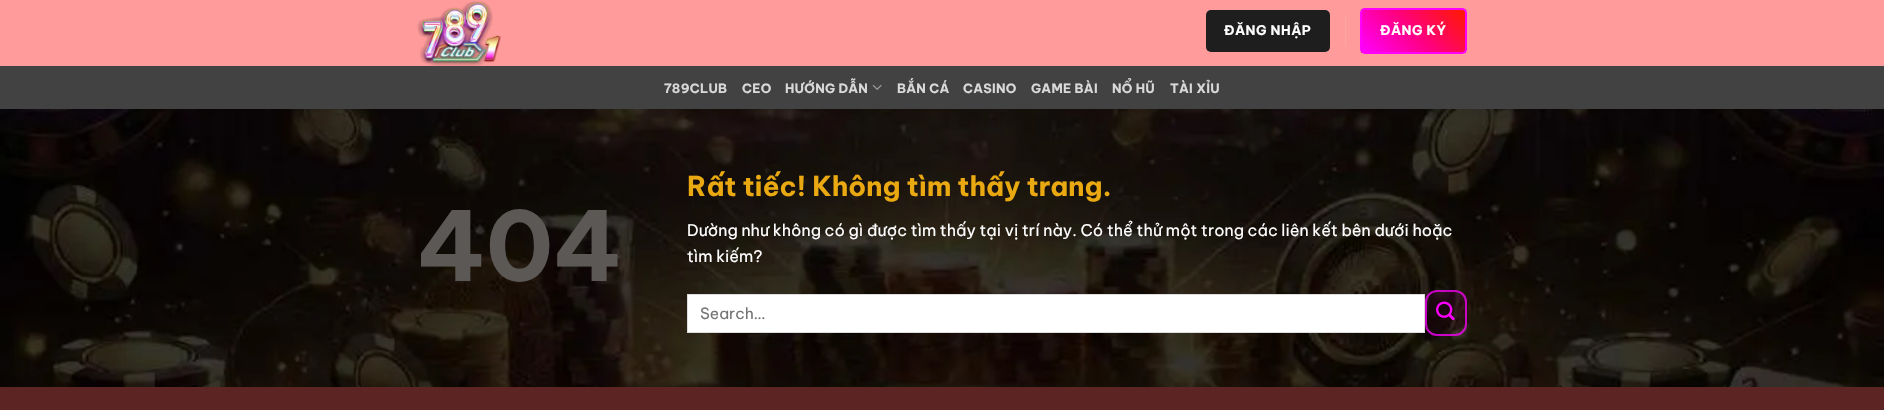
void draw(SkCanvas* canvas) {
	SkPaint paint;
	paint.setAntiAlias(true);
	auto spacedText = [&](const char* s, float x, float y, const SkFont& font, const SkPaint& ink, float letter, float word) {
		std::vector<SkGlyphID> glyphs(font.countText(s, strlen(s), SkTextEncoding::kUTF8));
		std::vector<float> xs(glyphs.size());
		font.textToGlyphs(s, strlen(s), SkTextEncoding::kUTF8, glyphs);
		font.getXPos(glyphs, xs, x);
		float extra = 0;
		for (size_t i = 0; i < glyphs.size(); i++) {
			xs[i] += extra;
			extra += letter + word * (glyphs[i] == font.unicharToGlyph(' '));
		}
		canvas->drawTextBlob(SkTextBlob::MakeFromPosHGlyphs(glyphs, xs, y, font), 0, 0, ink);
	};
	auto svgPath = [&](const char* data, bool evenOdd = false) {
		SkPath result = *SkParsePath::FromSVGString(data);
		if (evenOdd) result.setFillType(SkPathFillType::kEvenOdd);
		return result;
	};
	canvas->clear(0xffffffff);
	canvas->drawImageRect(SkImages::DeferredFromEncodedData(SkData::MakeFromFileName("img3.png")), SkRect::MakeXYWH(0, 109, 1884, 278), SkSamplingOptions());
	canvas->drawImageRect(SkImages::DeferredFromEncodedData(SkData::MakeFromFileName("img4.png")), SkRect::MakeXYWH(402, 109, 1080, 278), SkSamplingOptions());
	paint.setColor(0x26000000);
	paint.setMaskFilter(SkMaskFilter::MakeBlur(kNormal_SkBlurStyle, 5));
	canvas->drawRect(SkRect::MakeXYWH(1, 1, 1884, 109), paint);
	paint.setMaskFilter(nullptr);
	paint.setColor(0xffff9b9b);
	canvas->drawRect(SkRect::MakeXYWH(0, 0, 1884, 66), paint);
	canvas->drawImageRect(SkImages::DeferredFromEncodedData(SkData::MakeFromFileName("img1.png")), SkRect::MakeXYWH(417, 1, 84, 65), SkSamplingOptions());
	paint.setColor(0xff1e1e1e);
	canvas->drawRoundRect(SkRect::MakeXYWH(1206, 10, 124, 42), 5, 5, paint);
	SkFont f1(fontMgr->matchFamilyStyle("Be Vietnam Pro", SkFontStyle::Bold()), 13.25);
	f1.setSubpixel(true);
	paint.setColor(0xffffffff);
	spacedText("ĐĂNG NHẬP", 1224, 35, f1, paint, 0.5, 0);
	paint.setColor(0xffffa5a5);
	canvas->drawRect(SkRect::MakeXYWH(1345, 16, 1, 30), paint);
	canvas->save();
	canvas->clipPath(svgPath("M1365 8H1462C1465 8 1467 10 1467 13V49C1467 52 1465 54 1462 54H1365C1362 54 1360 52 1360 49V13C1360 10 1362 8 1365 8Z"), true);
	{
		const SkColor colors[] = {0xffff00ff, 0xffff007f, 0xffff1a00};
		const float stops[] = {0, 0.5, 1};
		const SkPoint ends[] = {{1274, 25}, {1347, -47}};
		paint.setShader(SkGradientShader::MakeLinear(ends, colors, stops, 3, SkTileMode::kClamp));
		paint.setAlpha(255);
	}
	canvas->drawRect(SkRect::MakeXYWH(1360, 9, 2, 1), paint);
	{
		const SkColor colors[] = {0xffff00ff, 0xffff007f, 0xffff1a00};
		const float stops[] = {0, 0.5, 1};
		const SkPoint ends[] = {{1480, 25}, {1553, -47}};
		paint.setShader(SkGradientShader::MakeLinear(ends, colors, stops, 3, SkTileMode::kClamp));
		paint.setAlpha(255);
	}
	canvas->drawRect(SkRect::MakeXYWH(1465, 9, 2, 1), paint);
	canvas->restore();
	{
		const SkColor colors[] = {0xffff00ff, 0xffff007f, 0xffff1a00};
		const float stops[] = {0, 0.5, 1};
		const SkPoint ends[] = {{1377, 67}, {1450, -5.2}};
		paint.setShader(SkGradientShader::MakeLinear(ends, colors, stops, 3, SkTileMode::kClamp));
		paint.setAlpha(255);
	}
	canvas->drawRect(SkRect::MakeXYWH(1362, 10, 103, 42), paint);
	canvas->save();
	canvas->clipPath(svgPath("M1365 8H1462C1465 8 1467 10 1467 13V49C1467 52 1465 54 1462 54H1365C1362 54 1360 52 1360 49V13C1360 10 1362 8 1365 8Z"), true);
	{
		const SkColor colors[] = {0xffff00ff, 0xffff007f, 0xffff1a00};
		const float stops[] = {0, 0.5, 1};
		const SkPoint ends[] = {{1274, 109}, {1347, 37}};
		paint.setShader(SkGradientShader::MakeLinear(ends, colors, stops, 3, SkTileMode::kClamp));
		paint.setAlpha(255);
	}
	canvas->drawRect(SkRect::MakeXYWH(1360, 52, 2, 1), paint);
	{
		const SkColor colors[] = {0xffff00ff, 0xffff007f, 0xffff1a00};
		const float stops[] = {0, 0.5, 1};
		const SkPoint ends[] = {{1480, 109}, {1553, 37}};
		paint.setShader(SkGradientShader::MakeLinear(ends, colors, stops, 3, SkTileMode::kClamp));
		paint.setAlpha(255);
	}
	canvas->drawRect(SkRect::MakeXYWH(1465, 52, 2, 1), paint);
	canvas->restore();
	paint.setStroke(true);
	paint.setStrokeWidth(2);
	paint.setShader(nullptr);
	paint.setColor(0xffff00ff);
	canvas->drawRoundRect(SkRect::MakeXYWH(1361, 9, 105, 44), 4, 4, paint);
	paint.setStroke(false);
	paint.setColor(0xffffffff);
	spacedText("ĐĂNG KÝ", 1380, 35, f1, paint, 0.5, 0);
	paint.setColor(0xff424242);
	canvas->drawRect(SkRect::MakeXYWH(0, 66, 1884, 43), paint);
	SkFont f2(fontMgr->matchFamilyStyle("Be Vietnam Pro", SkFontStyle::Bold()), 12.75);
	f2.setSubpixel(true);
	paint.setColor(0xffd9d9d9);
	spacedText("789CLUB", 664, 93, f2, paint, 0.25, 0);
	spacedText("CEO", 742, 93, f2, paint, 0.25, 0);
	spacedText("HƯỚNG DẪN", 785, 93, f2, paint, 0.25, 0);
	canvas->drawImageRect(SkImages::DeferredFromEncodedData(SkData::MakeFromFileName("img2.png")), SkRect::MakeXYWH(872, 84, 10, 6), SkSamplingOptions());
	spacedText("BẮN CÁ", 897, 93, f2, paint, 0.25, 0);
	spacedText("CASINO", 963, 93, f2, paint, 0.25, 0);
	spacedText("GAME BÀI", 1031, 93, f2, paint, 0.25, 0);
	spacedText("NỔ HŨ", 1112, 93, f2, paint, 0.25, 0);
	spacedText("TÀI XỈU", 1170, 93, f2, paint, 0.25, 0);
	SkFont f3(fontMgr->matchFamilyStyle("Be Vietnam Pro", SkFontStyle::Bold()), 96);
	f3.setSubpixel(true);
	paint.setColor(0xff5c5855);
	canvas->drawString("404", 417, 281, f3, paint);
	SkFont f4(fontMgr->matchFamilyStyle("Be Vietnam Pro", SkFontStyle::Bold()), 27.25);
	f4.setSubpixel(true);
	paint.setColor(0xffeaa911);
	canvas->drawString("Rất tiếc! Không tìm thấy trang.", 687, 196, f4, paint);
	SkFont f5(fontMgr->matchFamilyStyle("Be Vietnam Pro", SkFontStyle::Normal()), 16);
	f5.setSubpixel(true);
	paint.setColor(0xffffffff);
	canvas->drawString("Dường như không có gì được tìm thấy tại vị trí này. Có thể thử một trong các liên kết bên dưới hoặc", 687, 236, f5, paint);
	canvas->drawString("tìm kiếm?", 687, 262, f5, paint);
	canvas->drawRect(SkRect::MakeXYWH(687.5, 294.5, 737, 38), paint);
	paint.setStroke(true);
	paint.setStrokeWidth(1);
	paint.setColor(0xffdddddd);
	canvas->drawRect(SkRect::MakeXYWH(687.5, 294.5, 737, 38), paint);
	SkFont f6(fontMgr->matchFamilyStyle("Be Vietnam Pro", SkFontStyle::Normal()), 15.5);
	f6.setSubpixel(true);
	paint.setStroke(false);
	paint.setColor(0xff757575);
	canvas->drawString("Search…", 700, 319, f6, paint);
	paint.setStroke(true);
	paint.setStrokeWidth(2);
	paint.setColor(0xbfff00ff);
	canvas->drawRoundRect(SkRect::MakeXYWH(1426, 291, 40, 44), 11, 11, paint);
	canvas->drawImageRect(SkImages::DeferredFromEncodedData(SkData::MakeFromFileName("img5.png")), SkRect::MakeXYWH(1436, 301, 19, 20), SkSamplingOptions());
	paint.setStroke(false);
	paint.setColor(0xff5d2424);
	canvas->drawRect(SkRect::MakeXYWH(0, 387, 1884, 23), paint);
}
